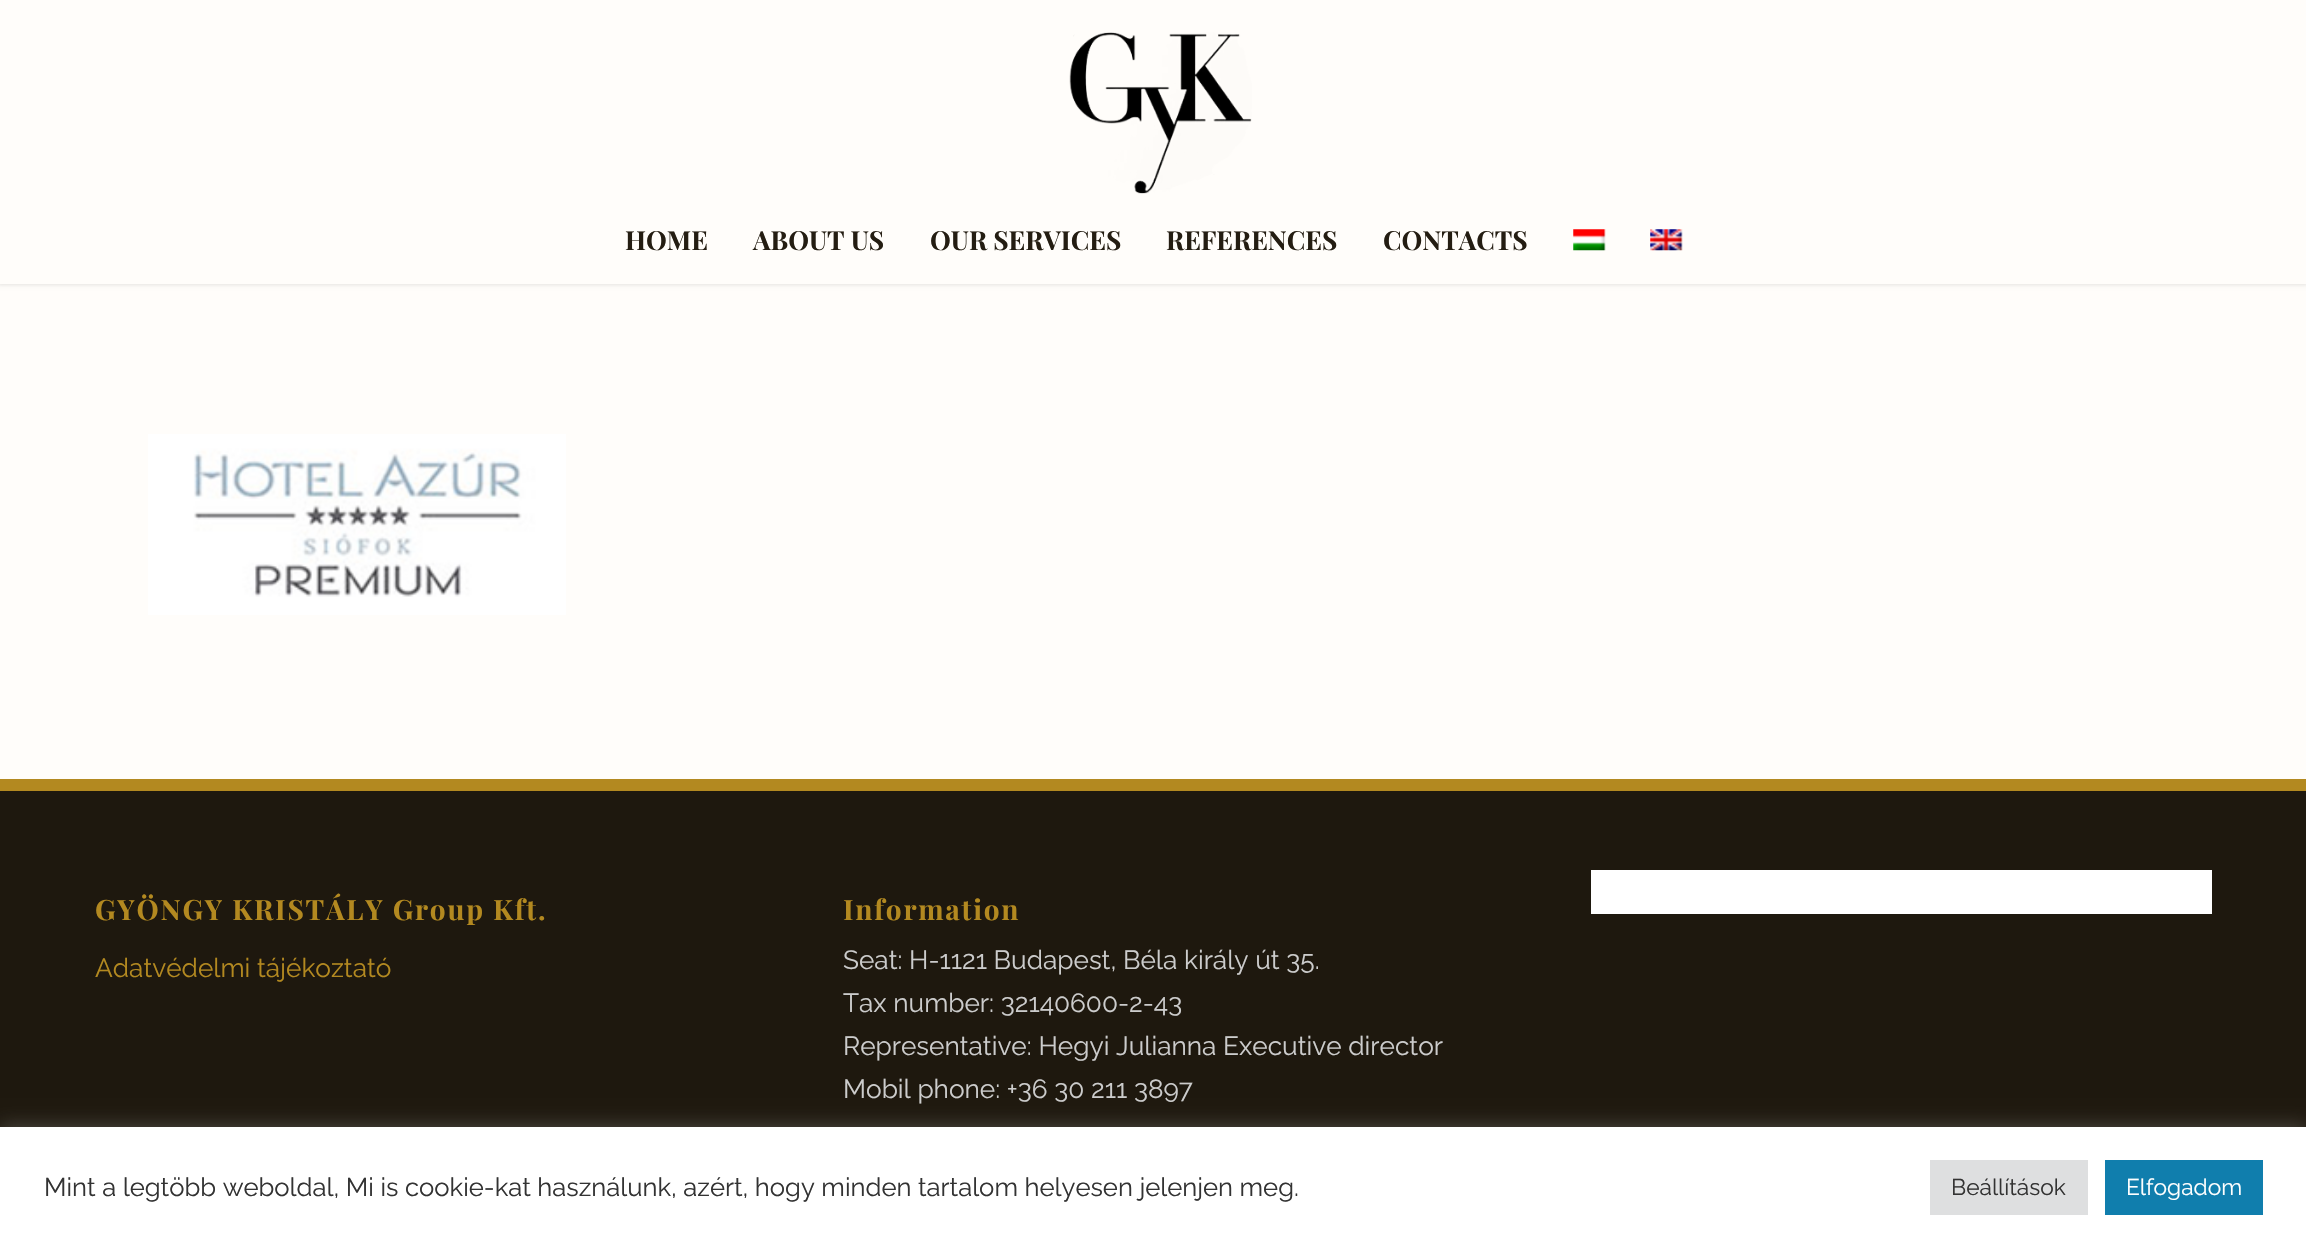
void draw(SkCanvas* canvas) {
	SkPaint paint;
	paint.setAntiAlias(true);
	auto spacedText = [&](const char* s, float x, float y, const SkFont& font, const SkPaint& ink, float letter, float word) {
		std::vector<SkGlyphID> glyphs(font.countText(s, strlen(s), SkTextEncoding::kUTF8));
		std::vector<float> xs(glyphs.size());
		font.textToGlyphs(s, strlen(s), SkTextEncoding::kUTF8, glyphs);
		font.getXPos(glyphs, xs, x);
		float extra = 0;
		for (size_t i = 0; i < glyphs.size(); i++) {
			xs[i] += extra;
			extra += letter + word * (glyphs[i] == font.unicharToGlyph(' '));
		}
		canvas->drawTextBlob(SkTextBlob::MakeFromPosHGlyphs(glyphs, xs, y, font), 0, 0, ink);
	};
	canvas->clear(0xfffffdfa);
	paint.setColor(0x1a000000);
	paint.setMaskFilter(SkMaskFilter::MakeBlur(kNormal_SkBlurStyle, 2));
	canvas->drawRect(SkRect::MakeXYWH(-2, -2, 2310, 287), paint);
	paint.setMaskFilter(nullptr);
	paint.setColor(0xfffffdfa);
	canvas->drawRect(SkRect::MakeXYWH(0, 0, 2306, 284), paint);
	canvas->drawImageRect(SkImages::DeferredFromEncodedData(SkData::MakeFromFileName("img1.png")), SkRect::MakeXYWH(1069, 32, 183, 162), SkSamplingOptions());
	SkFont f1(fontMgr->matchFamilyStyle("Playfair Display", SkFontStyle::Bold()), 26.25);
	f1.setSubpixel(true);
	paint.setColor(0xff241d12);
	canvas->drawString("HOME", 625, 250, f1, paint);
	canvas->drawString("ABOUT US", 753, 250, f1, paint);
	canvas->drawString("OUR SERVICES", 930, 250, f1, paint);
	canvas->drawString("REFERENCES", 1166, 250, f1, paint);
	canvas->drawString("CONTACTS", 1383, 250, f1, paint);
	canvas->drawImageRect(SkImages::DeferredFromEncodedData(SkData::MakeFromFileName("img2.png")), SkRect::MakeXYWH(1573, 229, 33, 22), SkSamplingOptions());
	canvas->drawImageRect(SkImages::DeferredFromEncodedData(SkData::MakeFromFileName("img3.png")), SkRect::MakeXYWH(1650, 229, 33, 22), SkSamplingOptions());
	canvas->drawImageRect(SkImages::DeferredFromEncodedData(SkData::MakeFromFileName("img4.png")), SkRect::MakeXYWH(148, 434, 418, 181), SkSamplingOptions());
	paint.setColor(0xff1e180e);
	canvas->drawRect(SkRect::MakeXYWH(0, 791, 2306, 336), paint);
	paint.setColor(0xffb38920);
	canvas->drawRect(SkRect::MakeXYWH(0, 779, 2306, 12), paint);
	SkFont f2(fontMgr->matchFamilyStyle("Playfair Display", SkFontStyle::Bold()), 28);
	f2.setSubpixel(true);
	spacedText("GYÖNGY KRISTÁLY Group Kft.", 95, 920, f2, paint, 1.75, 0);
	SkFont f3(fontMgr->matchFamilyStyle("Raleway", SkFontStyle(100, SkFontStyle::kNormal_Width, SkFontStyle::kUpright_Slant)), 26.25);
	f3.setSubpixel(true);
	canvas->drawString("Adatvédelmi tájékoztató", 95, 977, f3, paint);
	spacedText("Information", 843, 920, f2, paint, 1.75, 0);
	paint.setColor(0xffcccccc);
	canvas->drawString("Seat: H-1121 Budapest, Béla király út 35.", 843, 969, f3, paint);
	canvas->drawString("Tax number: 32140600-2-43", 843, 1012, f3, paint);
	canvas->drawString("Representative: Hegyi Julianna Executive director", 843, 1055, f3, paint);
	canvas->drawString("Mobil phone: +36 30 211 3897", 843, 1098, f3, paint);
	paint.setColor(0xffffffff);
	canvas->drawRect(SkRect::MakeXYWH(1591, 870, 621, 44), paint);
	paint.setColor(0x4dacabab);
	paint.setMaskFilter(SkMaskFilter::MakeBlur(kNormal_SkBlurStyle, 9));
	canvas->drawRect(SkRect::MakeXYWH(0, 1125, 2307, 121), paint);
	paint.setMaskFilter(nullptr);
	paint.setColor(0xffffffff);
	canvas->drawRect(SkRect::MakeXYWH(0, 1127, 2306, 120), paint);
	SkFont f4(fontMgr->matchFamilyStyle("Raleway", SkFontStyle(100, SkFontStyle::kNormal_Width, SkFontStyle::kUpright_Slant)), 25.65);
	f4.setSubpixel(true);
	paint.setColor(0xff333333);
	canvas->drawString("Mint a legtöbb weboldal, Mi is cookie-kat használunk, azért, hogy minden tartalom helyesen jelenjen meg.", 44, 1196, f4, paint);
	paint.setColor(0xffdedfe0);
	canvas->drawRect(SkRect::MakeXYWH(1930, 1160, 158, 55), paint);
	SkFont f5(fontMgr->matchFamilyStyle("Raleway", SkFontStyle(100, SkFontStyle::kNormal_Width, SkFontStyle::kUpright_Slant)), 22.75);
	f5.setSubpixel(true);
	paint.setColor(0xff333333);
	canvas->drawString("Beállítások", 1951, 1195, f5, paint);
	paint.setColor(0xff107ead);
	canvas->drawRect(SkRect::MakeXYWH(2105, 1160, 158, 55), paint);
	paint.setColor(0xffffffff);
	canvas->drawString("Elfogadom", 2126, 1195, f5, paint);
}
